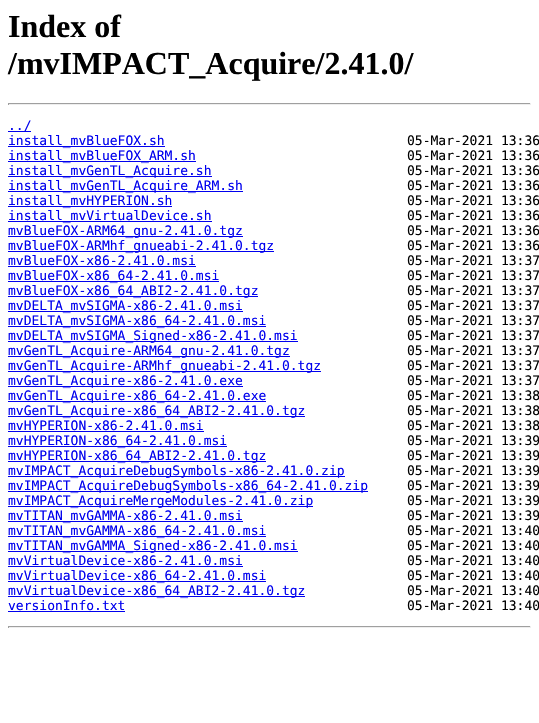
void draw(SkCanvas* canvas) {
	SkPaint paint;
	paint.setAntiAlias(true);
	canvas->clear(0xffffffff);
	SkFont f1(fontMgr->matchFamilyStyle("Liberation Serif", SkFontStyle::Bold()), 32);
	f1.setSubpixel(true);
	paint.setColor(0xff000000);
	canvas->drawString("Index of", 8, 37, f1, paint);
	canvas->drawString("/mvIMPACT_Acquire/2.41.0/", 8, 74, f1, paint);
	paint.setColor(0xff9f9f9f);
	canvas->drawRect(SkRect::MakeXYWH(8, 103, 523, 1), paint);
	paint.setColor(0xffeeeeee);
	canvas->drawRect(SkRect::MakeXYWH(530, 103, 1, 2), paint);
	canvas->drawRect(SkRect::MakeXYWH(8, 104, 523, 1), paint);
	paint.setColor(0xff9f9f9f);
	canvas->drawRect(SkRect::MakeXYWH(8, 103, 1, 2), paint);
	paint.setColor(0xff0000ee);
	canvas->drawRect(SkRect::MakeXYWH(8, 131, 23, 1), paint);
	SkFont f2(fontMgr->matchFamilyStyle("DejaVu Sans Mono", SkFontStyle::Normal()), 13);
	f2.setSubpixel(true);
	canvas->drawString("../", 8, 130, f2, paint);
	canvas->drawRect(SkRect::MakeXYWH(8, 146, 157, 1), paint);
	canvas->drawString("install_mvBlueFOX.sh", 8, 145, f2, paint);
	paint.setColor(0xff000000);
	canvas->drawString("05-Mar-2021 13:36", 407, 145, f2, paint);
	paint.setColor(0xff0000ee);
	canvas->drawRect(SkRect::MakeXYWH(8, 161, 188, 1), paint);
	canvas->drawString("install_mvBlueFOX_ARM.sh", 8, 160, f2, paint);
	paint.setColor(0xff000000);
	canvas->drawString("05-Mar-2021 13:36", 407, 160, f2, paint);
	paint.setColor(0xff0000ee);
	canvas->drawRect(SkRect::MakeXYWH(8, 176, 204, 1), paint);
	canvas->drawString("install_mvGenTL_Acquire.sh", 8, 175, f2, paint);
	paint.setColor(0xff000000);
	canvas->drawString("05-Mar-2021 13:36", 407, 175, f2, paint);
	paint.setColor(0xff0000ee);
	canvas->drawRect(SkRect::MakeXYWH(8, 191, 235, 1), paint);
	canvas->drawString("install_mvGenTL_Acquire_ARM.sh", 8, 190, f2, paint);
	paint.setColor(0xff000000);
	canvas->drawString("05-Mar-2021 13:36", 407, 190, f2, paint);
	paint.setColor(0xff0000ee);
	canvas->drawRect(SkRect::MakeXYWH(8, 206, 164, 1), paint);
	canvas->drawString("install_mvHYPERION.sh", 8, 205, f2, paint);
	paint.setColor(0xff000000);
	canvas->drawString("05-Mar-2021 13:36", 407, 205, f2, paint);
	paint.setColor(0xff0000ee);
	canvas->drawRect(SkRect::MakeXYWH(8, 221, 204, 1), paint);
	canvas->drawString("install_mvVirtualDevice.sh", 8, 220, f2, paint);
	paint.setColor(0xff000000);
	canvas->drawString("05-Mar-2021 13:36", 407, 220, f2, paint);
	paint.setColor(0xff0000ee);
	canvas->drawRect(SkRect::MakeXYWH(8, 236, 235, 1), paint);
	canvas->drawString("mvBlueFOX-ARM64_gnu-2.41.0.tgz", 8, 235, f2, paint);
	paint.setColor(0xff000000);
	canvas->drawString("05-Mar-2021 13:36", 407, 235, f2, paint);
	paint.setColor(0xff0000ee);
	canvas->drawRect(SkRect::MakeXYWH(8, 251, 266, 1), paint);
	canvas->drawString("mvBlueFOX-ARMhf_gnueabi-2.41.0.tgz", 8, 250, f2, paint);
	paint.setColor(0xff000000);
	canvas->drawString("05-Mar-2021 13:36", 407, 250, f2, paint);
	paint.setColor(0xff0000ee);
	canvas->drawString("mvBlueFOX-x86-2.41.0.msi", 8, 265, f2, paint);
	canvas->drawRect(SkRect::MakeXYWH(8, 266, 188, 1), paint);
	paint.setColor(0xff000000);
	canvas->drawString("05-Mar-2021 13:37", 407, 265, f2, paint);
	paint.setColor(0xff0000ee);
	canvas->drawRect(SkRect::MakeXYWH(8, 281, 211, 1), paint);
	canvas->drawString("mvBlueFOX-x86_64-2.41.0.msi", 8, 280, f2, paint);
	paint.setColor(0xff000000);
	canvas->drawString("05-Mar-2021 13:37", 407, 280, f2, paint);
	paint.setColor(0xff0000ee);
	canvas->drawRect(SkRect::MakeXYWH(8, 296, 250, 1), paint);
	canvas->drawString("mvBlueFOX-x86_64_ABI2-2.41.0.tgz", 8, 295, f2, paint);
	paint.setColor(0xff000000);
	canvas->drawString("05-Mar-2021 13:37", 407, 295, f2, paint);
	paint.setColor(0xff0000ee);
	canvas->drawRect(SkRect::MakeXYWH(8, 311, 235, 1), paint);
	canvas->drawString("mvDELTA_mvSIGMA-x86-2.41.0.msi", 8, 310, f2, paint);
	paint.setColor(0xff000000);
	canvas->drawString("05-Mar-2021 13:37", 407, 310, f2, paint);
	paint.setColor(0xff0000ee);
	canvas->drawRect(SkRect::MakeXYWH(8, 326, 258, 1), paint);
	canvas->drawString("mvDELTA_mvSIGMA-x86_64-2.41.0.msi", 8, 325, f2, paint);
	paint.setColor(0xff000000);
	canvas->drawString("05-Mar-2021 13:37", 407, 325, f2, paint);
	paint.setColor(0xff0000ee);
	canvas->drawRect(SkRect::MakeXYWH(8, 341, 290, 1), paint);
	canvas->drawString("mvDELTA_mvSIGMA_Signed-x86-2.41.0.msi", 8, 340, f2, paint);
	paint.setColor(0xff000000);
	canvas->drawString("05-Mar-2021 13:37", 407, 340, f2, paint);
	paint.setColor(0xff0000ee);
	canvas->drawRect(SkRect::MakeXYWH(8, 356, 282, 1), paint);
	canvas->drawString("mvGenTL_Acquire-ARM64_gnu-2.41.0.tgz", 8, 355, f2, paint);
	paint.setColor(0xff000000);
	canvas->drawString("05-Mar-2021 13:37", 407, 355, f2, paint);
	paint.setColor(0xff0000ee);
	canvas->drawRect(SkRect::MakeXYWH(8, 371, 313, 1), paint);
	canvas->drawString("mvGenTL_Acquire-ARMhf_gnueabi-2.41.0.tgz", 8, 370, f2, paint);
	paint.setColor(0xff000000);
	canvas->drawString("05-Mar-2021 13:37", 407, 370, f2, paint);
	paint.setColor(0xff0000ee);
	canvas->drawRect(SkRect::MakeXYWH(8, 386, 235, 1), paint);
	canvas->drawString("mvGenTL_Acquire-x86-2.41.0.exe", 8, 385, f2, paint);
	paint.setColor(0xff000000);
	canvas->drawString("05-Mar-2021 13:37", 407, 385, f2, paint);
	paint.setColor(0xff0000ee);
	canvas->drawRect(SkRect::MakeXYWH(8, 401, 258, 1), paint);
	canvas->drawString("mvGenTL_Acquire-x86_64-2.41.0.exe", 8, 400, f2, paint);
	paint.setColor(0xff000000);
	canvas->drawString("05-Mar-2021 13:38", 407, 400, f2, paint);
	paint.setColor(0xff0000ee);
	canvas->drawRect(SkRect::MakeXYWH(8, 416, 297, 1), paint);
	canvas->drawString("mvGenTL_Acquire-x86_64_ABI2-2.41.0.tgz", 8, 415, f2, paint);
	paint.setColor(0xff000000);
	canvas->drawString("05-Mar-2021 13:38", 407, 415, f2, paint);
	paint.setColor(0xff0000ee);
	canvas->drawString("mvHYPERION-x86-2.41.0.msi", 8, 430, f2, paint);
	canvas->drawRect(SkRect::MakeXYWH(8, 431, 196, 1), paint);
	paint.setColor(0xff000000);
	canvas->drawString("05-Mar-2021 13:38", 407, 430, f2, paint);
	paint.setColor(0xff0000ee);
	canvas->drawRect(SkRect::MakeXYWH(8, 446, 219, 1), paint);
	canvas->drawString("mvHYPERION-x86_64-2.41.0.msi", 8, 445, f2, paint);
	paint.setColor(0xff000000);
	canvas->drawString("05-Mar-2021 13:39", 407, 445, f2, paint);
	paint.setColor(0xff0000ee);
	canvas->drawRect(SkRect::MakeXYWH(8, 461, 258, 1), paint);
	canvas->drawString("mvHYPERION-x86_64_ABI2-2.41.0.tgz", 8, 460, f2, paint);
	paint.setColor(0xff000000);
	canvas->drawString("05-Mar-2021 13:39", 407, 460, f2, paint);
	paint.setColor(0xff0000ee);
	canvas->drawRect(SkRect::MakeXYWH(8, 476, 337, 1), paint);
	canvas->drawString("mvIMPACT_AcquireDebugSymbols-x86-2.41.0.zip", 8, 475, f2, paint);
	paint.setColor(0xff000000);
	canvas->drawString("05-Mar-2021 13:39", 407, 475, f2, paint);
	paint.setColor(0xff0000ee);
	canvas->drawRect(SkRect::MakeXYWH(8, 491, 360, 1), paint);
	canvas->drawString("mvIMPACT_AcquireDebugSymbols-x86_64-2.41.0.zip", 8, 490, f2, paint);
	paint.setColor(0xff000000);
	canvas->drawString("05-Mar-2021 13:39", 407, 490, f2, paint);
	paint.setColor(0xff0000ee);
	canvas->drawRect(SkRect::MakeXYWH(8, 506, 305, 1), paint);
	canvas->drawString("mvIMPACT_AcquireMergeModules-2.41.0.zip", 8, 505, f2, paint);
	paint.setColor(0xff000000);
	canvas->drawString("05-Mar-2021 13:39", 407, 505, f2, paint);
	paint.setColor(0xff0000ee);
	canvas->drawRect(SkRect::MakeXYWH(8, 521, 235, 1), paint);
	canvas->drawString("mvTITAN_mvGAMMA-x86-2.41.0.msi", 8, 520, f2, paint);
	paint.setColor(0xff000000);
	canvas->drawString("05-Mar-2021 13:39", 407, 520, f2, paint);
	paint.setColor(0xff0000ee);
	canvas->drawRect(SkRect::MakeXYWH(8, 536, 258, 1), paint);
	canvas->drawString("mvTITAN_mvGAMMA-x86_64-2.41.0.msi", 8, 535, f2, paint);
	paint.setColor(0xff000000);
	canvas->drawString("05-Mar-2021 13:40", 407, 535, f2, paint);
	paint.setColor(0xff0000ee);
	canvas->drawRect(SkRect::MakeXYWH(8, 551, 290, 1), paint);
	canvas->drawString("mvTITAN_mvGAMMA_Signed-x86-2.41.0.msi", 8, 550, f2, paint);
	paint.setColor(0xff000000);
	canvas->drawString("05-Mar-2021 13:40", 407, 550, f2, paint);
	paint.setColor(0xff0000ee);
	canvas->drawString("mvVirtualDevice-x86-2.41.0.msi", 8, 565, f2, paint);
	canvas->drawRect(SkRect::MakeXYWH(8, 566, 235, 1), paint);
	paint.setColor(0xff000000);
	canvas->drawString("05-Mar-2021 13:40", 407, 565, f2, paint);
	paint.setColor(0xff0000ee);
	canvas->drawRect(SkRect::MakeXYWH(8, 581, 258, 1), paint);
	canvas->drawString("mvVirtualDevice-x86_64-2.41.0.msi", 8, 580, f2, paint);
	paint.setColor(0xff000000);
	canvas->drawString("05-Mar-2021 13:40", 407, 580, f2, paint);
	paint.setColor(0xff0000ee);
	canvas->drawRect(SkRect::MakeXYWH(8, 596, 297, 1), paint);
	canvas->drawString("mvVirtualDevice-x86_64_ABI2-2.41.0.tgz", 8, 595, f2, paint);
	paint.setColor(0xff000000);
	canvas->drawString("05-Mar-2021 13:40", 407, 595, f2, paint);
	paint.setColor(0xff0000ee);
	canvas->drawString("versionInfo.txt", 8, 610, f2, paint);
	canvas->drawRect(SkRect::MakeXYWH(8, 611, 117, 1), paint);
	paint.setColor(0xff000000);
	canvas->drawString("05-Mar-2021 13:40", 407, 610, f2, paint);
	paint.setColor(0xff9f9f9f);
	canvas->drawRect(SkRect::MakeXYWH(8, 626, 523, 1), paint);
	paint.setColor(0xffeeeeee);
	canvas->drawRect(SkRect::MakeXYWH(530, 626, 1, 2), paint);
	canvas->drawRect(SkRect::MakeXYWH(8, 627, 523, 1), paint);
	paint.setColor(0xff9f9f9f);
	canvas->drawRect(SkRect::MakeXYWH(8, 626, 1, 2), paint);
}
